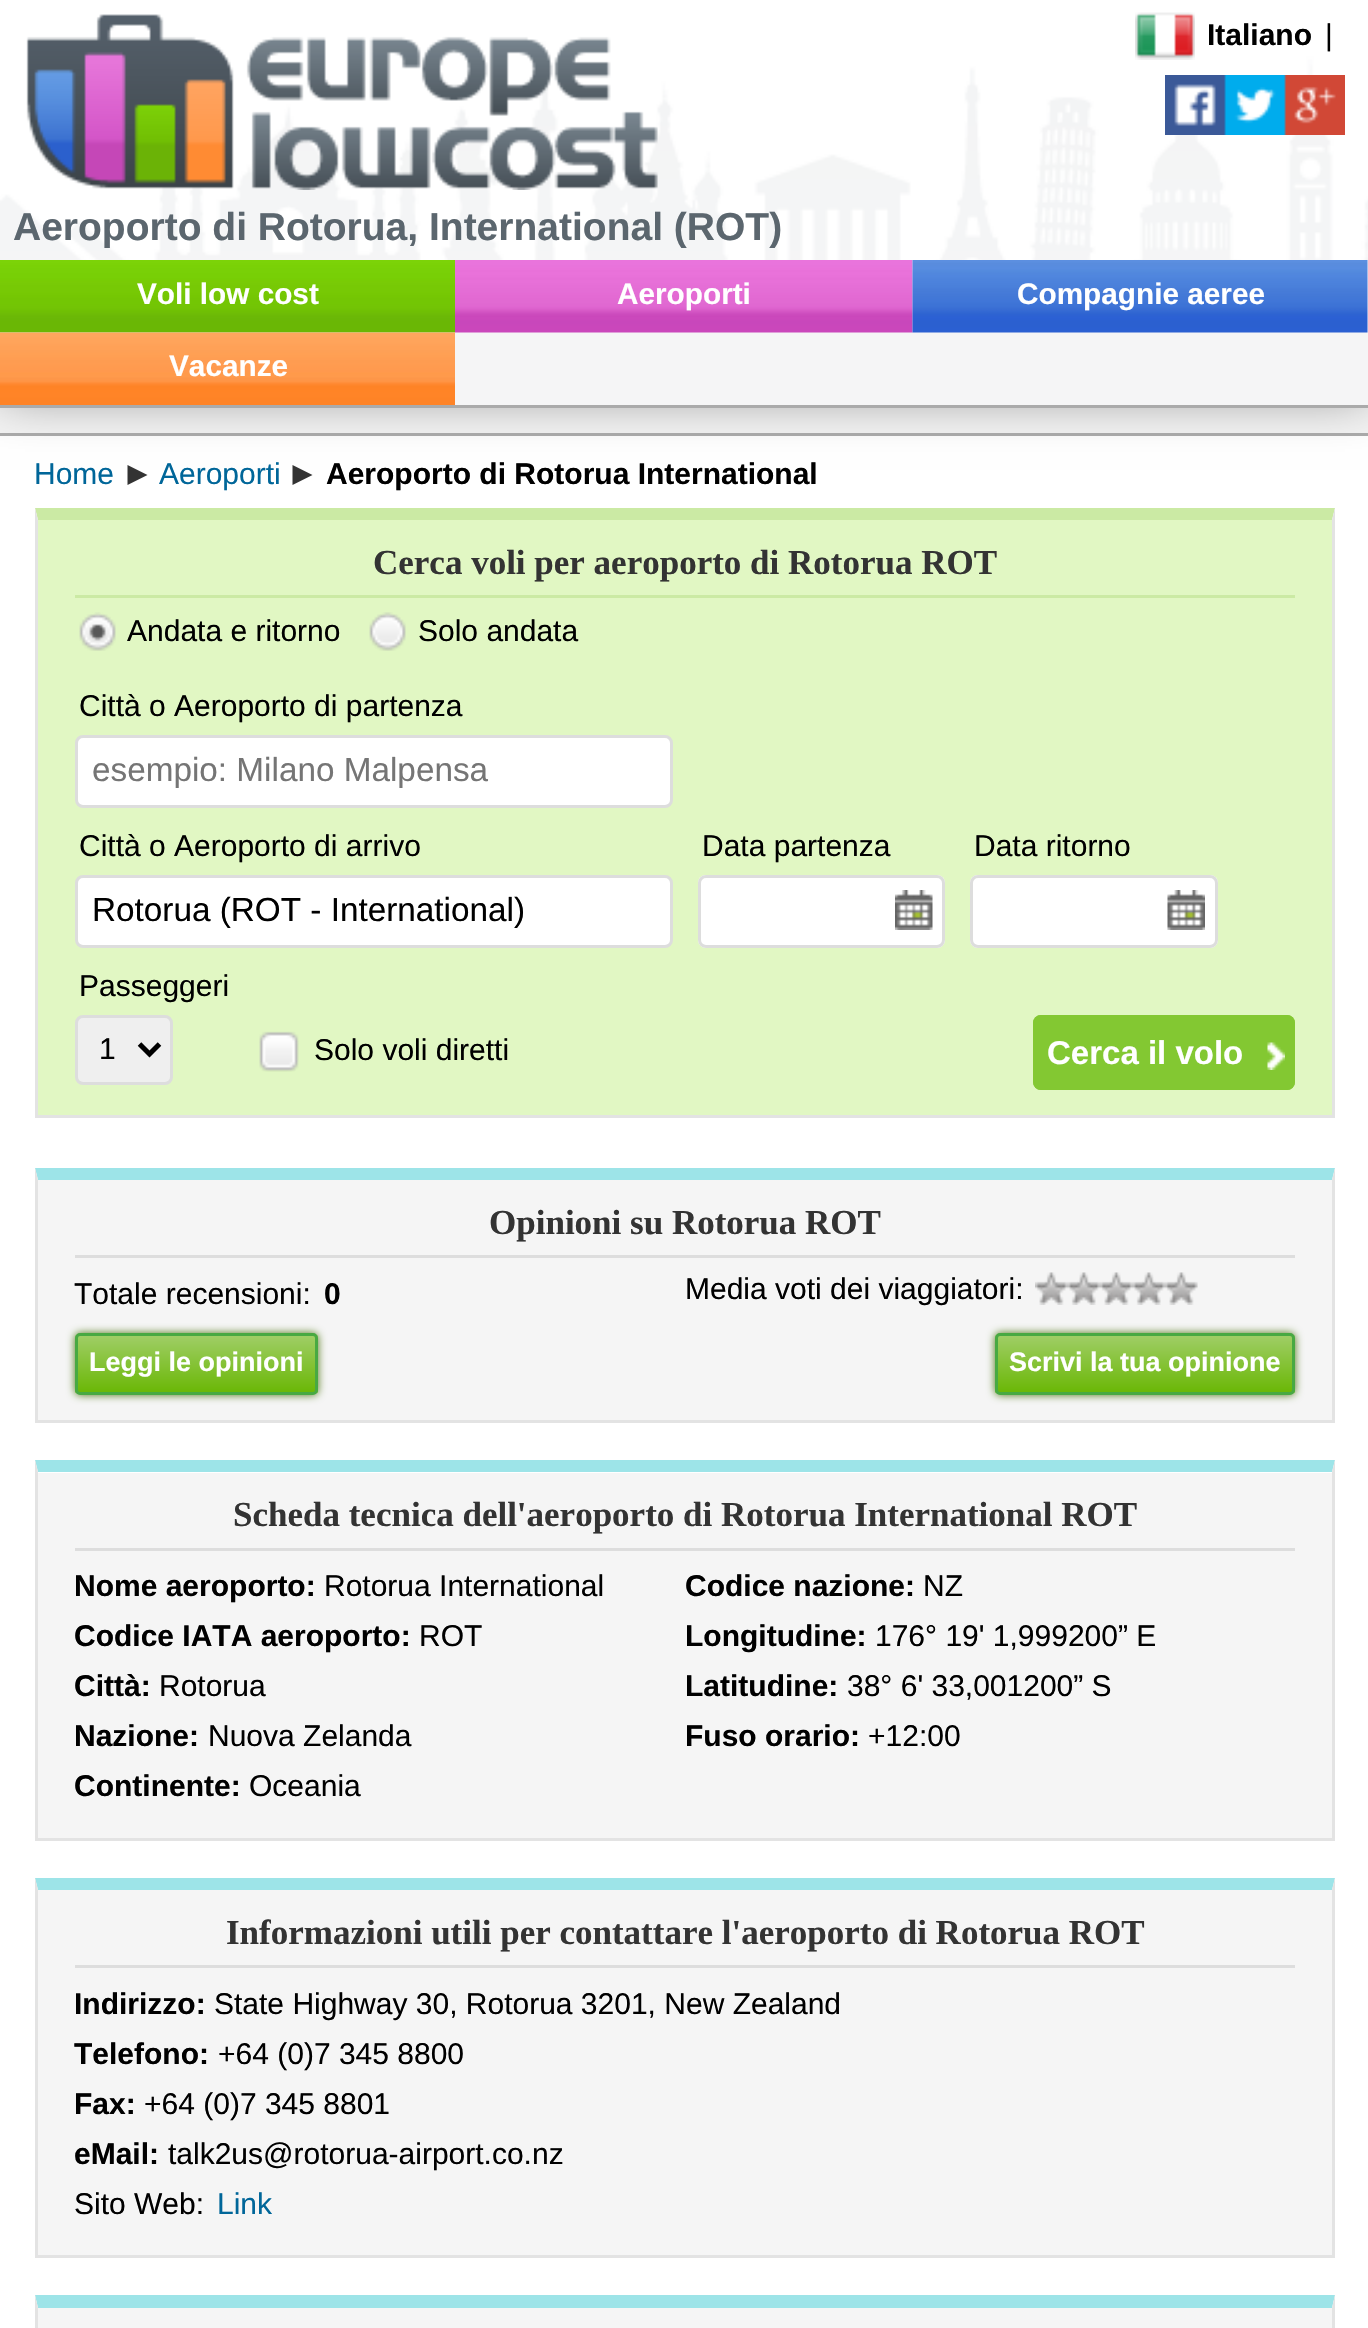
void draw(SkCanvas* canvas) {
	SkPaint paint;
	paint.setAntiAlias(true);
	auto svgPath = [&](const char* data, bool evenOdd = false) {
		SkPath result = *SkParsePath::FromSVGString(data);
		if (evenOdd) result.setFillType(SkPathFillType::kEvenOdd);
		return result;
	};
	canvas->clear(0xfff4f4f4);
	paint.setColor(0xffffffff);
	canvas->drawRect(SkRect::MakeXYWH(0, 436, 1368, 1892), paint);
	paint.setColor(0xffaaaaaa);
	canvas->drawRect(SkRect::MakeXYWH(0, 433, 1368, 3), paint);
	paint.setColor(0xff333333);
	canvas->drawPath(svgPath("M127.5 485V465L147.5 475Z"), paint);
	canvas->drawPath(svgPath("M292.5 485V465L312.5 475Z"), paint);
	paint.setColor(0xff888888);
	paint.setMaskFilter(SkMaskFilter::MakeBlur(kNormal_SkBlurStyle, 25));
	canvas->drawRect(SkRect::MakeXYWH(0, -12, 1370, 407), paint);
	paint.setMaskFilter(nullptr);
	paint.setColor(0xfff5f5f6);
	canvas->drawRect(SkRect::MakeXYWH(0, 278, 1368, 127), paint);
	canvas->drawImageRect(SkImages::DeferredFromEncodedData(SkData::MakeFromFileName("img1.png")), SkRect::MakeXYWH(0, 0, 1368, 278), SkSamplingOptions());
	paint.setColor(0xffaaaaaa);
	canvas->drawRect(SkRect::MakeXYWH(0, 405, 1368, 3), paint);
	canvas->drawImageRect(SkImages::DeferredFromEncodedData(SkData::MakeFromFileName("img2.png")), SkRect::MakeXYWH(26, 14, 632, 176), SkSamplingOptions());
	canvas->drawImageRect(SkImages::DeferredFromEncodedData(SkData::MakeFromFileName("img3.png")), SkRect::MakeXYWH(1135, 12, 60, 48), SkSamplingOptions());
	SkFont f1(fontMgr->matchFamilyStyle("Liberation Sans", SkFontStyle::Bold()), 30);
	f1.setSubpixel(true);
	paint.setColor(0xff000000);
	canvas->drawString("Italiano", 1207, 45, f1, paint);
	SkFont f2(fontMgr->matchFamilyStyle("Liberation Sans", SkFontStyle::Normal()), 30);
	f2.setSubpixel(true);
	canvas->drawString("|", 1325, 45, f2, paint);
	canvas->drawImageRect(SkImages::DeferredFromEncodedData(SkData::MakeFromFileName("img4.png")), SkRect::MakeXYWH(1165, 75, 180, 60), SkSamplingOptions());
	SkFont f3(fontMgr->matchFamilyStyle("Liberation Sans", SkFontStyle::Bold()), 39);
	f3.setSubpixel(true);
	paint.setColor(0xff5b666e);
	canvas->drawString("Aeroporto di Rotorua, International (ROT)", 13, 240, f3, paint);
	canvas->drawImageRect(SkImages::DeferredFromEncodedData(SkData::MakeFromFileName("img5.png")), SkRect::MakeXYWH(0, 260, 455, 73), SkSamplingOptions());
	SkFont f4(fontMgr->matchFamilyStyle("Liberation Sans", SkFontStyle::Bold()), 29.75);
	f4.setSubpixel(true);
	paint.setColor(0xffffffff);
	canvas->drawString("Voli low cost", 137, 304, f4, paint);
	canvas->drawImageRect(SkImages::DeferredFromEncodedData(SkData::MakeFromFileName("img6.png")), SkRect::MakeXYWH(455, 260, 458, 73), SkSamplingOptions());
	canvas->drawString("Aeroporti", 617, 304, f4, paint);
	canvas->drawImageRect(SkImages::DeferredFromEncodedData(SkData::MakeFromFileName("img7.png")), SkRect::MakeXYWH(912, 260, 456, 73), SkSamplingOptions());
	canvas->drawString("Compagnie aeree", 1017, 304, f4, paint);
	canvas->drawImageRect(SkImages::DeferredFromEncodedData(SkData::MakeFromFileName("img8.png")), SkRect::MakeXYWH(0, 332, 455, 73), SkSamplingOptions());
	canvas->drawString("Vacanze", 169, 376, f4, paint);
	paint.setColor(0xff006699);
	canvas->drawString("Home", 34, 484, f2, paint);
	canvas->drawString("Aeroporti", 159, 484, f2, paint);
	paint.setColor(0xff000000);
	canvas->drawString("Aeroporto di Rotorua International", 326, 484, f1, paint);
	paint.setColor(0xffe1f7c3);
	canvas->drawRect(SkRect::MakeXYWH(38, 520, 1294, 595), paint);
	paint.setColor(0xffcbeaa4);
	canvas->drawPath(svgPath("M35 508H1335L1332 520H38Z"), paint);
	paint.setColor(0xffe3e3e3);
	canvas->drawPath(svgPath("M1335 508V1118L1332 1115V520Z"), paint);
	canvas->drawRect(SkRect::MakeXYWH(35, 1115, 1300, 3), paint);
	canvas->drawPath(svgPath("M35 1118V508L38 520V1115Z"), paint);
	paint.setColor(0xffcbeaa4);
	canvas->drawRect(SkRect::MakeXYWH(75, 595, 1220, 3), paint);
	SkFont f5(fontMgr->matchFamilyStyle("Liberation Serif", SkFontStyle::Bold()), 35);
	f5.setSubpixel(true);
	paint.setColor(0xff333333);
	canvas->drawString("Cerca voli per aeroporto di Rotorua ROT", 373, 574, f5, paint);
	canvas->drawImageRect(SkImages::DeferredFromEncodedData(SkData::MakeFromFileName("img9.png")), SkRect::MakeXYWH(79, 612, 37, 39), SkSamplingOptions());
	paint.setColor(0xff000000);
	canvas->drawString("Andata e ritorno", 127, 641, f2, paint);
	canvas->drawImageRect(SkImages::DeferredFromEncodedData(SkData::MakeFromFileName("img10.png")), SkRect::MakeXYWH(369, 612, 37, 39), SkSamplingOptions());
	canvas->drawString("Solo andata", 418, 641, f2, paint);
	canvas->drawString("Città o Aeroporto di partenza", 79, 716, f2, paint);
	paint.setColor(0xffffffff);
	canvas->drawRoundRect(SkRect::MakeXYWH(76.5, 736.5, 595, 70), 6.5, 6.5, paint);
	paint.setStroke(true);
	paint.setStrokeWidth(3);
	paint.setColor(0xffdddddd);
	canvas->drawRoundRect(SkRect::MakeXYWH(76.5, 736.5, 595, 70), 6.5, 6.5, paint);
	SkFont f6(fontMgr->matchFamilyStyle("Liberation Sans", SkFontStyle::Normal()), 33.3);
	f6.setSubpixel(true);
	paint.setStroke(false);
	paint.setColor(0xff757575);
	canvas->drawString("esempio: Milano Malpensa", 92, 781, f6, paint);
	paint.setColor(0xff000000);
	canvas->drawString("Città o Aeroporto di arrivo", 79, 856, f2, paint);
	paint.setColor(0xffffffff);
	canvas->drawRoundRect(SkRect::MakeXYWH(76.5, 876.5, 595, 70), 6.5, 6.5, paint);
	paint.setStroke(true);
	paint.setColor(0xffdddddd);
	canvas->drawRoundRect(SkRect::MakeXYWH(76.5, 876.5, 595, 70), 6.5, 6.5, paint);
	paint.setStroke(false);
	paint.setColor(0xff000000);
	canvas->drawString("Rotorua (ROT - International)", 92, 921, f6, paint);
	canvas->drawString("Data partenza", 702, 856, f2, paint);
	paint.setColor(0xffffffff);
	canvas->drawRoundRect(SkRect::MakeXYWH(698, 875, 247, 73), 8, 8, paint);
	canvas->drawImageRect(SkImages::DeferredFromEncodedData(SkData::MakeFromFileName("img11.png")), SkRect::MakeXYWH(895, 890, 38, 40), SkSamplingOptions());
	paint.setStroke(true);
	paint.setColor(0xffdddddd);
	canvas->drawRoundRect(SkRect::MakeXYWH(699.5, 876.5, 244, 70), 6.5, 6.5, paint);
	paint.setStroke(false);
	paint.setColor(0xff000000);
	canvas->drawString("Data ritorno", 974, 856, f2, paint);
	paint.setColor(0xffffffff);
	canvas->drawRoundRect(SkRect::MakeXYWH(970, 875, 248, 73), 8, 8, paint);
	canvas->drawImageRect(SkImages::DeferredFromEncodedData(SkData::MakeFromFileName("img12.png")), SkRect::MakeXYWH(1167, 890, 38, 40), SkSamplingOptions());
	paint.setStroke(true);
	paint.setColor(0xffdddddd);
	canvas->drawRoundRect(SkRect::MakeXYWH(971.5, 876.5, 245, 70), 6.5, 6.5, paint);
	paint.setStroke(false);
	paint.setColor(0xff000000);
	canvas->drawString("Passeggeri", 79, 996, f2, paint);
	paint.setColor(0xffefefef);
	canvas->drawRoundRect(SkRect::MakeXYWH(76.5, 1016.5, 95, 67), 6.5, 6.5, paint);
	paint.setStroke(true);
	paint.setColor(0xffdddddd);
	canvas->drawRoundRect(SkRect::MakeXYWH(76.5, 1016.5, 95, 67), 6.5, 6.5, paint);
	paint.setStrokeWidth(5);
	paint.setColor(0xff000000);
	canvas->drawPath(svgPath("M139.5 1044L149.5 1054L159.5 1044"), paint);
	paint.setStroke(false);
	canvas->drawString("1", 99, 1059, f2, paint);
	canvas->drawImageRect(SkImages::DeferredFromEncodedData(SkData::MakeFromFileName("img13.png")), SkRect::MakeXYWH(259, 1031, 40, 41), SkSamplingOptions());
	canvas->drawString("Solo voli diretti", 314, 1060, f2, paint);
	paint.setColor(0xff83c832);
	canvas->drawRoundRect(SkRect::MakeXYWH(1033, 1015, 262, 75), 8, 8, paint);
	canvas->drawImageRect(SkImages::DeferredFromEncodedData(SkData::MakeFromFileName("img14.png")), SkRect::MakeXYWH(1267, 1042, 18, 28), SkSamplingOptions());
	paint.setStroke(true);
	paint.setStrokeWidth(3);
	canvas->drawRoundRect(SkRect::MakeXYWH(1034.5, 1016.5, 259, 72), 6.5, 6.5, paint);
	SkFont f7(fontMgr->matchFamilyStyle("Liberation Sans", SkFontStyle::Bold()), 33);
	f7.setSubpixel(true);
	paint.setStroke(false);
	paint.setColor(0xffffffff);
	canvas->drawString("Cerca il volo", 1047, 1064, f7, paint);
	paint.setColor(0xfff5f5f5);
	canvas->drawRect(SkRect::MakeXYWH(38, 1180, 1294, 240), paint);
	paint.setColor(0xff9de4e8);
	canvas->drawPath(svgPath("M35 1168H1335L1332 1180H38Z"), paint);
	paint.setColor(0xffe3e3e3);
	canvas->drawPath(svgPath("M1335 1168V1422L1332 1420V1180Z"), paint);
	canvas->drawRect(SkRect::MakeXYWH(35, 1420, 1300, 3), paint);
	canvas->drawPath(svgPath("M35 1422V1168L38 1180V1420Z"), paint);
	paint.setColor(0xffdddddd);
	canvas->drawRect(SkRect::MakeXYWH(75, 1255, 1220, 3), paint);
	paint.setColor(0xff333333);
	canvas->drawString("Opinioni su Rotorua ROT", 489, 1234, f5, paint);
	paint.setColor(0xff000000);
	canvas->drawString("Totale recensioni:", 74, 1304, f2, paint);
	canvas->drawString("0", 324, 1304, f1, paint);
	canvas->drawString("Media voti dei viaggiatori:", 685, 1299, f2, paint);
	canvas->drawImageRect(SkImages::DeferredFromEncodedData(SkData::MakeFromFileName("img15.png")), SkRect::MakeXYWH(1035, 1272, 163, 33), SkSamplingOptions());
	paint.setColor(0xff4f7512);
	paint.setMaskFilter(SkMaskFilter::MakeBlur(kNormal_SkBlurStyle, 4));
	canvas->drawRoundRect(SkRect::MakeXYWH(75, 1333, 243, 62), 5, 5, paint);
	paint.setMaskFilter(nullptr);
	canvas->save();
	canvas->clipPath(svgPath("M80 1333H313C316 1333 318 1335 318 1338V1390C318 1393 316 1395 313 1395H80C77 1395 75 1393 75 1390V1338C75 1335 77 1333 80 1333Z"), true);
	{
		const SkColor colors[] = {0xffa0ce67, 0xff6ab705};
		const float stops[] = {0, 1};
		const SkPoint ends[] = {{196, 1335}, {196, 1393}};
		paint.setShader(SkGradientShader::MakeLinear(ends, colors, stops, 2, SkTileMode::kClamp));
		paint.setAlpha(255);
	}
	canvas->drawRect(SkRect::MakeXYWH(75, 1335, 243, 58), paint);
	canvas->restore();
	paint.setStroke(true);
	paint.setShader(nullptr);
	paint.setColor(0xff48a942);
	canvas->drawRoundRect(SkRect::MakeXYWH(76.5, 1334.5, 240, 59), 3.5, 3.5, paint);
	SkFont f8(fontMgr->matchFamilyStyle("Liberation Sans", SkFontStyle::Bold()), 27);
	f8.setSubpixel(true);
	paint.setStroke(false);
	paint.setColor(0xffffffff);
	canvas->drawString("Leggi le opinioni", 89, 1371, f8, paint);
	paint.setColor(0xff4f7512);
	paint.setMaskFilter(SkMaskFilter::MakeBlur(kNormal_SkBlurStyle, 4));
	canvas->drawRoundRect(SkRect::MakeXYWH(995, 1333, 300, 62), 5, 5, paint);
	paint.setMaskFilter(nullptr);
	canvas->save();
	canvas->clipPath(svgPath("M1000 1333H1290C1293 1333 1295 1335 1295 1338V1390C1295 1393 1293 1395 1290 1395H1000C997 1395 995 1393 995 1390V1338C995 1335 997 1333 1000 1333Z"), true);
	{
		const SkColor colors[] = {0xffa0ce67, 0xff6ab705};
		const float stops[] = {0, 1};
		const SkPoint ends[] = {{1145, 1335}, {1145, 1393}};
		paint.setShader(SkGradientShader::MakeLinear(ends, colors, stops, 2, SkTileMode::kClamp));
		paint.setAlpha(255);
	}
	canvas->drawRect(SkRect::MakeXYWH(995, 1335, 300, 58), paint);
	canvas->restore();
	paint.setStroke(true);
	paint.setShader(nullptr);
	paint.setColor(0xff48a942);
	canvas->drawRoundRect(SkRect::MakeXYWH(996.5, 1334.5, 297, 59), 3.5, 3.5, paint);
	paint.setStroke(false);
	paint.setColor(0xffffffff);
	canvas->drawString("Scrivi la tua opinione", 1009, 1371, f8, paint);
	paint.setColor(0xfff5f5f5);
	canvas->drawRect(SkRect::MakeXYWH(38, 1473, 1294, 365), paint);
	paint.setColor(0xff9de4e8);
	canvas->drawPath(svgPath("M35 1460H1335L1332 1472H38Z"), paint);
	paint.setColor(0xffe3e3e3);
	canvas->drawPath(svgPath("M1335 1460V1840L1332 1838V1472Z"), paint);
	canvas->drawRect(SkRect::MakeXYWH(35, 1838, 1300, 3), paint);
	canvas->drawPath(svgPath("M35 1840V1460L38 1472V1838Z"), paint);
	paint.setColor(0xffdddddd);
	canvas->drawRect(SkRect::MakeXYWH(75, 1548, 1220, 3), paint);
	paint.setColor(0xff333333);
	canvas->drawString("Scheda tecnica dell'aeroporto di Rotorua International ROT", 233, 1526, f5, paint);
	paint.setColor(0xff000000);
	canvas->drawString("Nome aeroporto:", 74, 1596, f1, paint);
	canvas->drawString("Rotorua International", 324, 1596, f2, paint);
	canvas->drawString("Codice IATA aeroporto:", 74, 1646, f1, paint);
	canvas->drawString("ROT", 419, 1646, f2, paint);
	canvas->drawString("Città:", 74, 1696, f1, paint);
	canvas->drawString("Rotorua", 159, 1696, f2, paint);
	canvas->drawString("Nazione:", 74, 1746, f1, paint);
	canvas->drawString("Nuova Zelanda", 208, 1746, f2, paint);
	canvas->drawString("Continente:", 74, 1796, f1, paint);
	canvas->drawString("Oceania", 249, 1796, f2, paint);
	canvas->drawString("Codice nazione:", 685, 1596, f1, paint);
	canvas->drawString("NZ", 923, 1596, f2, paint);
	canvas->drawString("Longitudine:", 685, 1646, f1, paint);
	canvas->drawString("176° 19' 1,999200” E", 875, 1646, f2, paint);
	canvas->drawString("Latitudine:", 685, 1696, f1, paint);
	canvas->drawString("38° 6' 33,001200” S", 847, 1696, f2, paint);
	canvas->drawString("Fuso orario:", 685, 1746, f1, paint);
	canvas->drawString("+12:00", 868, 1746, f2, paint);
	paint.setColor(0xfff5f5f5);
	canvas->drawRect(SkRect::MakeXYWH(38, 1890, 1294, 365), paint);
	paint.setColor(0xff9de4e8);
	canvas->drawPath(svgPath("M35 1878H1335L1332 1890H38Z"), paint);
	paint.setColor(0xffe3e3e3);
	canvas->drawPath(svgPath("M1335 1878V2258L1332 2255V1890Z"), paint);
	canvas->drawRect(SkRect::MakeXYWH(35, 2255, 1300, 3), paint);
	canvas->drawPath(svgPath("M35 2258V1878L38 1890V2255Z"), paint);
	paint.setColor(0xffdddddd);
	canvas->drawRect(SkRect::MakeXYWH(75, 1965, 1220, 3), paint);
	paint.setColor(0xff333333);
	canvas->drawString("Informazioni utili per contattare l'aeroporto di Rotorua ROT", 226, 1944, f5, paint);
	paint.setColor(0xff000000);
	canvas->drawString("Indirizzo:", 74, 2014, f1, paint);
	canvas->drawString("State Highway 30, Rotorua 3201, New Zealand", 214, 2014, f2, paint);
	canvas->drawString("Telefono:", 74, 2064, f1, paint);
	canvas->drawString("+64 (0)7 345 8800", 218, 2064, f2, paint);
	canvas->drawString("Fax:", 74, 2114, f1, paint);
	canvas->drawString("+64 (0)7 345 8801", 144, 2114, f2, paint);
	canvas->drawString("eMail:", 74, 2164, f1, paint);
	canvas->drawString("talk2us@rotorua-airport.co.nz", 168, 2164, f2, paint);
	canvas->drawString("Sito Web:", 74, 2214, f2, paint);
	paint.setColor(0xff006699);
	canvas->drawString("Link", 217, 2214, f2, paint);
	paint.setColor(0xfff5f5f5);
	canvas->drawRect(SkRect::MakeXYWH(38, 2308, 1294, 20), paint);
	paint.setColor(0xff9de4e8);
	canvas->drawPath(svgPath("M35 2295H1335L1332 2308H38Z"), paint);
	paint.setColor(0xffe3e3e3);
	canvas->drawPath(svgPath("M1335 2295V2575L1332 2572V2308Z"), paint);
	canvas->drawPath(svgPath("M35 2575V2295L38 2308V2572Z"), paint);
}
